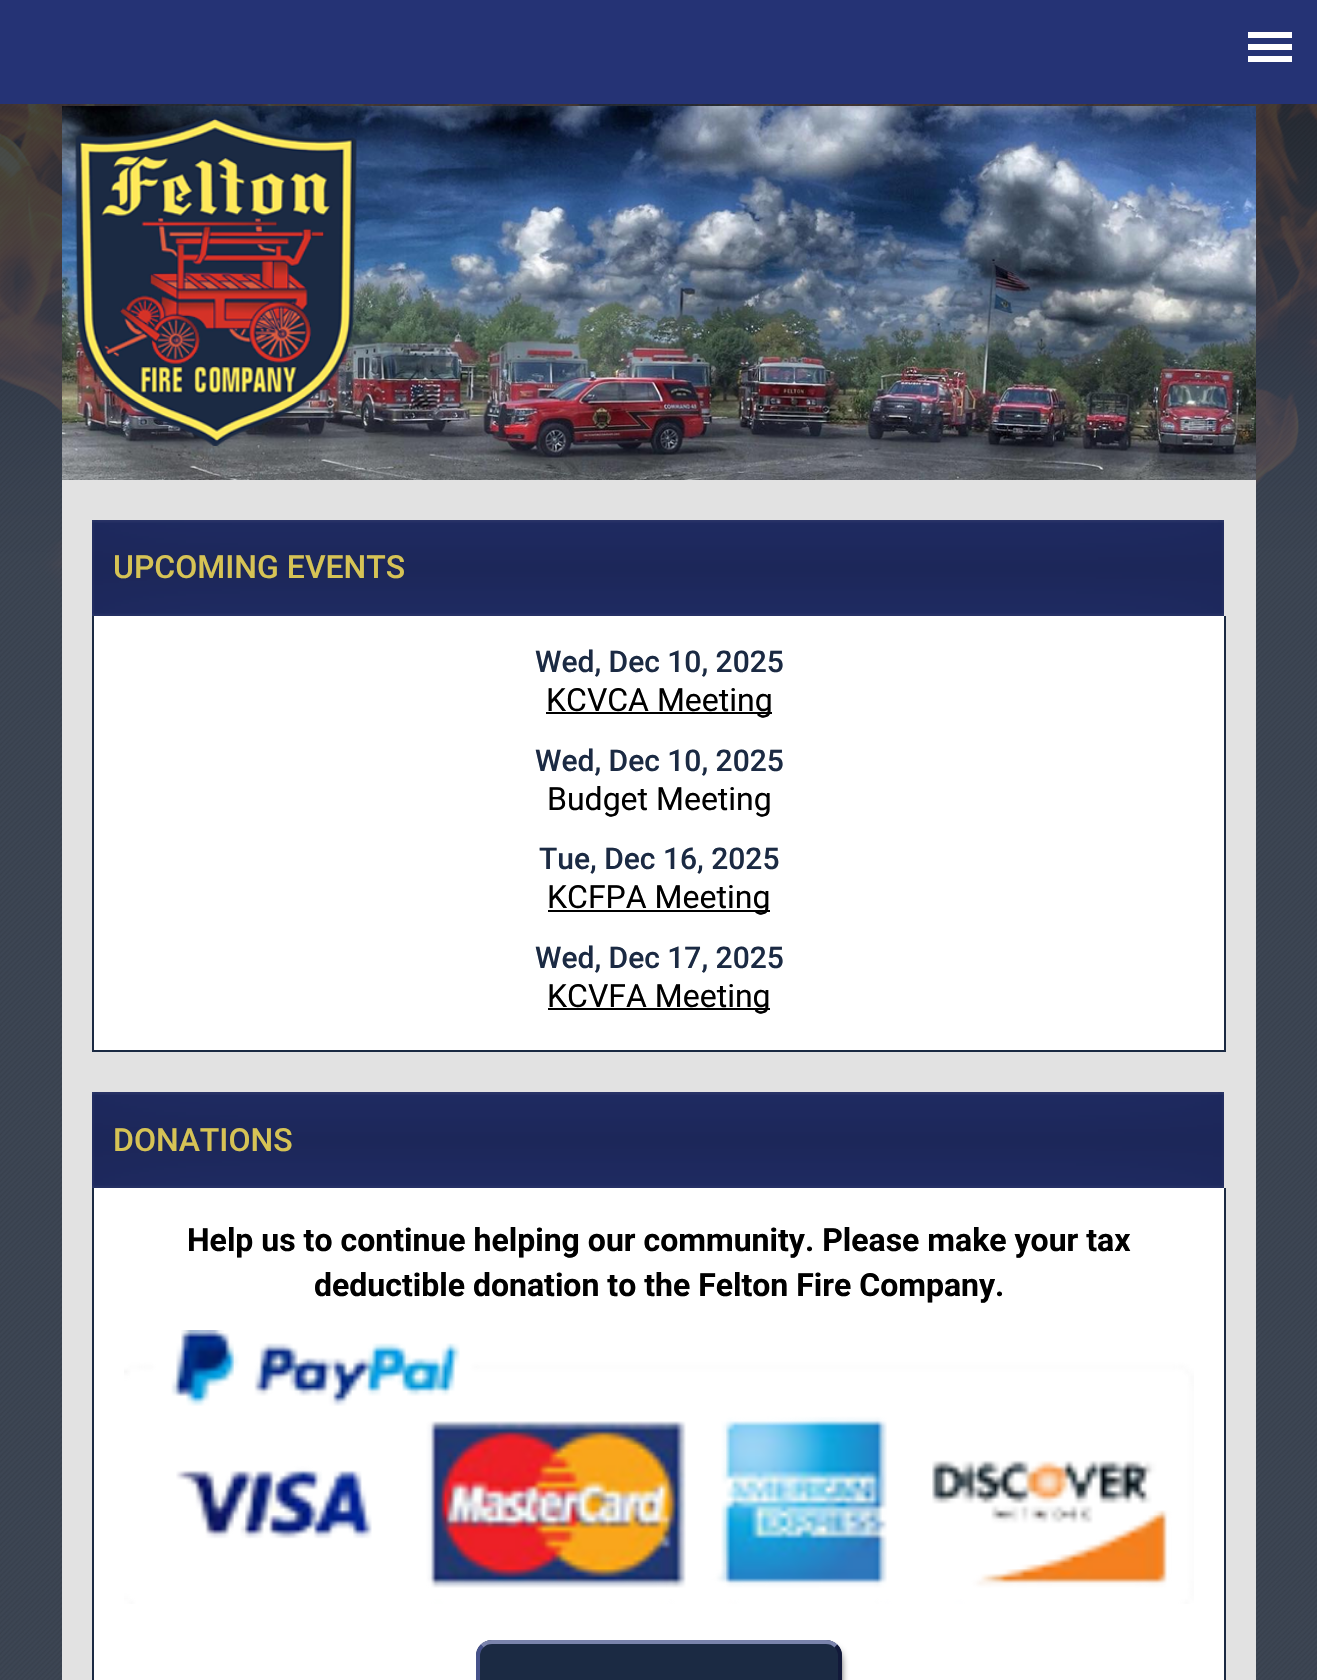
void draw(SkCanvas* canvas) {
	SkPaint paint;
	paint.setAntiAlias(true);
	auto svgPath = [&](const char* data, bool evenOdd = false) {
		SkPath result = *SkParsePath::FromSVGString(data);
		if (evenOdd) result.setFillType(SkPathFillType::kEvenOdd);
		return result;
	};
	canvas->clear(0xffffffff);
	canvas->drawImageRect(SkImages::DeferredFromEncodedData(SkData::MakeFromFileName("img1.png")), SkRect::MakeXYWH(0, 104, 1317, 1576), SkSamplingOptions());
	paint.setColor(0xff253375);
	canvas->drawRect(SkRect::MakeXYWH(0, 0, 1317, 104), paint);
	paint.setColor(0xffffffff);
	canvas->drawRect(SkRect::MakeXYWH(1248, 32, 44, 6), paint);
	canvas->drawRect(SkRect::MakeXYWH(1248, 44, 44, 6), paint);
	canvas->drawRect(SkRect::MakeXYWH(1248, 56, 44, 6), paint);
	canvas->drawImageRect(SkImages::DeferredFromEncodedData(SkData::MakeFromFileName("img2.png")), SkRect::MakeXYWH(62, 106, 1194, 374), SkSamplingOptions());
	canvas->drawImageRect(SkImages::DeferredFromEncodedData(SkData::MakeFromFileName("img3.png")), SkRect::MakeXYWH(75, 114, 282, 332), SkSamplingOptions());
	paint.setColor(0xffe2e2e2);
	canvas->drawRect(SkRect::MakeXYWH(62, 480, 1194, 1200), paint);
	canvas->drawImageRect(SkImages::DeferredFromEncodedData(SkData::MakeFromFileName("img4.png")), SkRect::MakeXYWH(92, 520, 1132, 96), SkSamplingOptions());
	SkFont f1(fontMgr->matchFamilyStyle("Roboto", SkFontStyle(500, SkFontStyle::kNormal_Width, SkFontStyle::kUpright_Slant)), 32);
	f1.setSubpixel(true);
	paint.setColor(0xffd6c355);
	canvas->drawString("UPCOMING EVENTS", 113, 578, f1, paint);
	paint.setColor(0xffffffff);
	canvas->drawRect(SkRect::MakeXYWH(94, 616, 1130, 434), paint);
	paint.setColor(0xff1b2a43);
	canvas->drawRect(SkRect::MakeXYWH(1224, 616, 2, 436), paint);
	canvas->drawRect(SkRect::MakeXYWH(92, 1050, 1134, 2), paint);
	canvas->drawRect(SkRect::MakeXYWH(92, 616, 2, 436), paint);
	SkFont f2(fontMgr->matchFamilyStyle("Roboto", SkFontStyle(500, SkFontStyle::kNormal_Width, SkFontStyle::kUpright_Slant)), 30);
	f2.setSubpixel(true);
	canvas->drawString("Wed, Dec 10, 2025", 535, 672, f2, paint);
	paint.setColor(0xff000000);
	canvas->drawRect(SkRect::MakeXYWH(546, 712, 226, 2), paint);
	SkFont f3(fontMgr->matchFamilyStyle("Roboto", SkFontStyle::Normal()), 32);
	f3.setSubpixel(true);
	canvas->drawString("KCVCA Meeting", 546, 711, f3, paint);
	paint.setColor(0xff1b2a43);
	canvas->drawString("Wed, Dec 10, 2025", 535, 771, f2, paint);
	paint.setColor(0xff000000);
	canvas->drawString("Budget Meeting", 547, 810, f3, paint);
	paint.setColor(0xff1b2a43);
	canvas->drawString("Tue, Dec 16, 2025", 539, 869, f2, paint);
	paint.setColor(0xff000000);
	canvas->drawRect(SkRect::MakeXYWH(548, 910, 222, 2), paint);
	canvas->drawString("KCFPA Meeting", 547, 908, f3, paint);
	paint.setColor(0xff1b2a43);
	canvas->drawString("Wed, Dec 17, 2025", 535, 968, f2, paint);
	paint.setColor(0xff000000);
	canvas->drawRect(SkRect::MakeXYWH(548, 1008, 222, 2), paint);
	canvas->drawString("KCVFA Meeting", 547, 1007, f3, paint);
	canvas->drawImageRect(SkImages::DeferredFromEncodedData(SkData::MakeFromFileName("img4.png")), SkRect::MakeXYWH(92, 1092, 1132, 96), SkSamplingOptions());
	paint.setColor(0xffd6c355);
	canvas->drawString("DONATIONS", 113, 1151, f1, paint);
	paint.setColor(0xffffffff);
	canvas->drawRect(SkRect::MakeXYWH(94, 1188, 1130, 492), paint);
	paint.setColor(0xff1b2a43);
	canvas->drawRect(SkRect::MakeXYWH(1224, 1188, 2, 492), paint);
	canvas->drawRect(SkRect::MakeXYWH(92, 1188, 2, 492), paint);
	SkFont f4(fontMgr->matchFamilyStyle("Roboto", SkFontStyle::Bold()), 32);
	f4.setSubpixel(true);
	paint.setColor(0xff000000);
	canvas->drawString("Help us to continue helping our community. Please make your tax", 187, 1251, f4, paint);
	canvas->drawString("deductible donation to the Felton Fire Company.", 314, 1296, f4, paint);
	canvas->drawImageRect(SkImages::DeferredFromEncodedData(SkData::MakeFromFileName("img5.png")), SkRect::MakeXYWH(124, 1330, 1070, 274), SkSamplingOptions());
	paint.setMaskFilter(SkMaskFilter::MakeBlur(kNormal_SkBlurStyle, 4));
	canvas->drawRoundRect(SkRect::MakeXYWH(486, 1650, 354, 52), 10, 10, paint);
	paint.setMaskFilter(nullptr);
	paint.setColor(0xff1b2a43);
	canvas->drawRoundRect(SkRect::MakeXYWH(476, 1640, 366, 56), 16, 16, paint);
	paint.setStroke(true);
	paint.setStrokeWidth(4);
	paint.setColor(0xff7b84ac);
	canvas->drawPath(svgPath("M482 1646C484.5 1643.5 488.5 1642 492 1642H826C829.5 1642 833.5 1643.5 836 1646"), paint);
	paint.setColor(0xff12193a);
	canvas->drawPath(svgPath("M836 1646C838.5 1648.5 840 1652.5 840 1656V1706C840 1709.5 838.5 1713.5 836 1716C833.5 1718.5 829.5 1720 826 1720H492C488.5 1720 484.5 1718.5 482 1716"), paint);
	paint.setColor(0xff46528a);
	canvas->drawPath(svgPath("M482 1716C479.5 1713.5 478 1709.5 478 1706V1656C478 1652.5 479.5 1648.5 482 1646"), paint);
}
